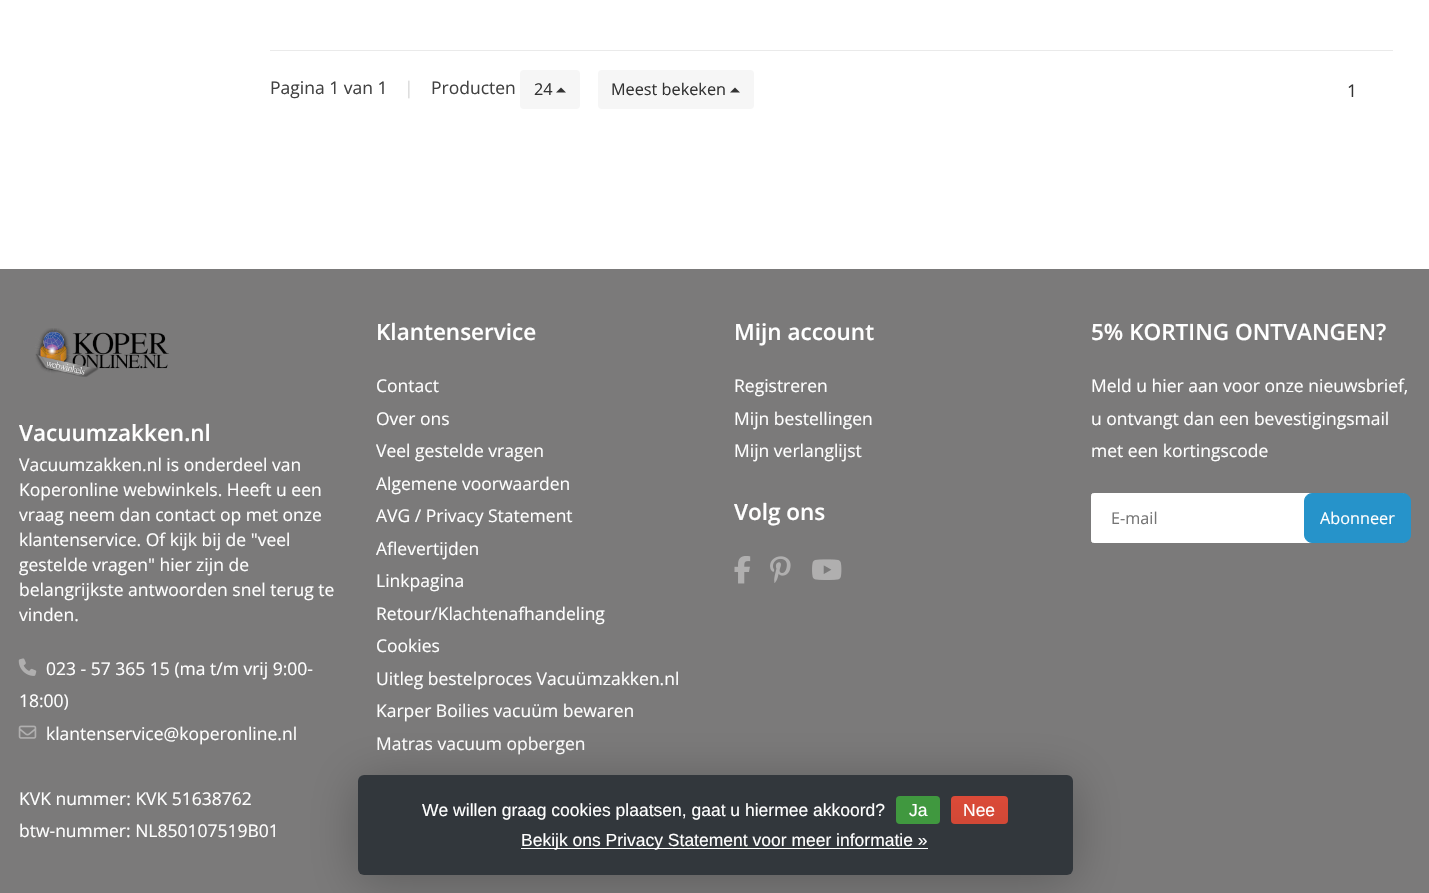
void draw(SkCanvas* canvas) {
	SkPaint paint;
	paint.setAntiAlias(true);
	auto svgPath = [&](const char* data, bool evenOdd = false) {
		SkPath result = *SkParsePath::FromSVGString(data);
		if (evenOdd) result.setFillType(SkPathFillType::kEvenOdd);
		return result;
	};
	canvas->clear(0xffffffff);
	paint.setColor(0xffeaeaea);
	canvas->drawRect(SkRect::MakeXYWH(270, 50, 1123, 1), paint);
	SkFont f1(fontMgr->matchFamilyStyle("Open Sans", SkFontStyle::Normal()), 17.5);
	f1.setSubpixel(true);
	paint.setColor(0xff414141);
	canvas->drawString("Pagina 1 van 1", 270, 94, f1, paint);
	paint.setColor(0xffd9d9d9);
	canvas->drawString("|", 404, 94, f1, paint);
	paint.setColor(0xff414141);
	canvas->drawString("Producten", 431, 94, f1, paint);
	paint.setColor(0xfff6f6f6);
	canvas->drawRoundRect(SkRect::MakeXYWH(520, 70, 60, 39), 4, 4, paint);
	SkFont f2(fontMgr->matchFamilyStyle("Open Sans", SkFontStyle::Normal()), 16.25);
	f2.setSubpixel(true);
	paint.setColor(0xff333333);
	canvas->drawString("24", 534, 95, f2, paint);
	canvas->drawPath(svgPath("M566 92.5H556L561 87.5Z"), paint);
	paint.setColor(0xfff6f6f6);
	canvas->drawRoundRect(SkRect::MakeXYWH(598, 70, 156, 39), 4, 4, paint);
	paint.setColor(0xff333333);
	canvas->drawString("Meest bekeken", 611, 95, f2, paint);
	canvas->drawPath(svgPath("M740 92.5H730L735 87.5Z"), paint);
	canvas->drawString("1", 1347, 97, f1, paint);
	paint.setColor(0xff7b7a7a);
	canvas->drawRect(SkRect::MakeXYWH(0, 269, 1429, 624), paint);
	canvas->drawImageRect(SkImages::DeferredFromEncodedData(SkData::MakeFromFileName("img1.png")), SkRect::MakeXYWH(35, 328, 134, 49), SkSamplingOptions());
	SkFont f3(fontMgr->matchFamilyStyle("Open Sans", SkFontStyle(600, SkFontStyle::kNormal_Width, SkFontStyle::kUpright_Slant)), 22.5);
	f3.setSubpixel(true);
	paint.setColor(0xffffffff);
	canvas->drawString("Vacuumzakken.nl", 19, 441, f3, paint);
	canvas->drawString("Vacuumzakken.nl is onderdeel van", 19, 471, f1, paint);
	canvas->drawString("Koperonline webwinkels. Heeft u een", 19, 496, f1, paint);
	canvas->drawString("vraag neem dan contact op met onze", 19, 521, f1, paint);
	canvas->drawString("klantenservice. Of kijk bij de \"veel", 19, 546, f1, paint);
	canvas->drawString("gestelde vragen\" hier zijn de", 19, 571, f1, paint);
	canvas->drawString("belangrijkste antwoorden snel terug te", 19, 596, f1, paint);
	canvas->drawString("vinden.", 19, 621, f1, paint);
	canvas->drawImageRect(SkImages::DeferredFromEncodedData(SkData::MakeFromFileName("img2.png")), SkRect::MakeXYWH(18, 658, 19, 18), SkSamplingOptions());
	canvas->drawString("023 - 57 365 15 (ma t/m vrij 9:00-", 46, 675, f1, paint);
	canvas->drawString("18:00)", 19, 707, f1, paint);
	canvas->drawImageRect(SkImages::DeferredFromEncodedData(SkData::MakeFromFileName("img3.png")), SkRect::MakeXYWH(18, 725, 19, 14), SkSamplingOptions());
	canvas->drawString("klantenservice@koperonline.nl", 46, 740, f1, paint);
	canvas->drawString("KVK nummer: KVK 51638762", 19, 805, f1, paint);
	canvas->drawString("btw-nummer: NL850107519B01", 19, 837, f1, paint);
	canvas->drawString("Klantenservice", 376, 340, f3, paint);
	canvas->drawString("Contact", 376, 392, f1, paint);
	canvas->drawString("Over ons", 376, 425, f1, paint);
	canvas->drawString("Veel gestelde vragen", 376, 457, f1, paint);
	canvas->drawString("Algemene voorwaarden", 376, 490, f1, paint);
	canvas->drawString("AVG / Privacy Statement", 376, 522, f1, paint);
	canvas->drawString("Aflevertijden", 376, 555, f1, paint);
	canvas->drawString("Linkpagina", 376, 587, f1, paint);
	canvas->drawString("Retour/Klachtenafhandeling", 376, 620, f1, paint);
	canvas->drawString("Cookies", 376, 652, f1, paint);
	canvas->drawString("Uitleg bestelproces Vacuümzakken.nl", 376, 685, f1, paint);
	canvas->drawString("Karper Boilies vacuüm bewaren", 376, 717, f1, paint);
	canvas->drawString("Matras vacuum opbergen", 376, 750, f1, paint);
	canvas->drawString("Mijn account", 734, 340, f3, paint);
	canvas->drawString("Registreren", 734, 392, f1, paint);
	canvas->drawString("Mijn bestellingen", 734, 425, f1, paint);
	canvas->drawString("Mijn verlanglijst", 734, 457, f1, paint);
	canvas->drawString("Volg ons", 734, 520, f3, paint);
	canvas->drawImageRect(SkImages::DeferredFromEncodedData(SkData::MakeFromFileName("img4.png")), SkRect::MakeXYWH(734, 556, 17, 28), SkSamplingOptions());
	canvas->drawImageRect(SkImages::DeferredFromEncodedData(SkData::MakeFromFileName("img5.png")), SkRect::MakeXYWH(770, 556, 21, 27), SkSamplingOptions());
	canvas->drawImageRect(SkImages::DeferredFromEncodedData(SkData::MakeFromFileName("img6.png")), SkRect::MakeXYWH(812, 559, 30, 21), SkSamplingOptions());
	canvas->drawString("5% KORTING ONTVANGEN?", 1091, 340, f3, paint);
	canvas->drawString("Meld u hier aan voor onze nieuwsbrief,", 1091, 392, f1, paint);
	canvas->drawString("u ontvangt dan een bevestigingsmail", 1091, 425, f1, paint);
	canvas->drawString("met een kortingscode", 1091, 457, f1, paint);
	canvas->drawRoundRect(SkRect::MakeXYWH(1091.5, 493.5, 313, 49), 2, 2, paint);
	paint.setStroke(true);
	paint.setStrokeWidth(1);
	canvas->drawRoundRect(SkRect::MakeXYWH(1091.5, 493.5, 313, 49), 2, 2, paint);
	paint.setStroke(false);
	paint.setColor(0xff757575);
	canvas->drawString("E-mail", 1111, 524, f2, paint);
	paint.setColor(0xff2693ca);
	canvas->drawRoundRect(SkRect::MakeXYWH(1304.5, 493.5, 106, 49), 7.5, 7.5, paint);
	paint.setStroke(true);
	canvas->drawRoundRect(SkRect::MakeXYWH(1304.5, 493.5, 106, 49), 7.5, 7.5, paint);
	paint.setStroke(false);
	paint.setColor(0xffffffff);
	canvas->drawString("Abonneer", 1320, 524, f2, paint);
	canvas->save();
	canvas->clipPath(svgPath("M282 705H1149V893H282ZM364 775H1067C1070.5 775 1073 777.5 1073 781V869C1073 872.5 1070.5 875 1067 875H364C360.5 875 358 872.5 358 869V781C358 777.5 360.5 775 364 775Z", true), true);
	paint.setColor(0x40000000);
	paint.setMaskFilter(SkMaskFilter::MakeBlur(kNormal_SkBlurStyle, 25));
	canvas->drawRoundRect(SkRect::MakeXYWH(358, 781, 715, 100), 6, 6, paint);
	paint.setMaskFilter(nullptr);
	canvas->restore();
	paint.setColor(0xd9242a30);
	canvas->drawRoundRect(SkRect::MakeXYWH(358, 775, 715, 100), 6, 6, paint);
	SkFont f4(fontMgr->matchFamilyStyle("Liberation Sans", SkFontStyle::Normal()), 17.5);
	f4.setSubpixel(true);
	paint.setColor(0xffffffff);
	canvas->drawString("We willen graag cookies plaatsen, gaat u hiermee akkoord?", 422, 816, f4, paint);
	paint.setColor(0xff40983f);
	canvas->drawRoundRect(SkRect::MakeXYWH(896, 796, 44, 28), 4, 4, paint);
	paint.setColor(0xffffffff);
	canvas->drawString("Ja", 909, 816, f4, paint);
	{
		const SkColor colors[] = {0xffdc4a38, 0xffd14836};
		const float stops[] = {0, 1};
		const SkPoint ends[] = {{979, 796}, {979, 824}};
		paint.setShader(SkGradientShader::MakeLinear(ends, colors, stops, 2, SkTileMode::kClamp));
		paint.setAlpha(255);
	}
	canvas->drawRoundRect(SkRect::MakeXYWH(951, 796, 57, 28), 4, 4, paint);
	paint.setShader(nullptr);
	paint.setColor(0xffffffff);
	canvas->drawString("Nee", 963, 816, f4, paint);
	canvas->drawRect(SkRect::MakeXYWH(521, 848, 407, 1), paint);
	canvas->drawString("Bekijk ons Privacy Statement voor meer informatie »", 521, 846, f4, paint);
}
